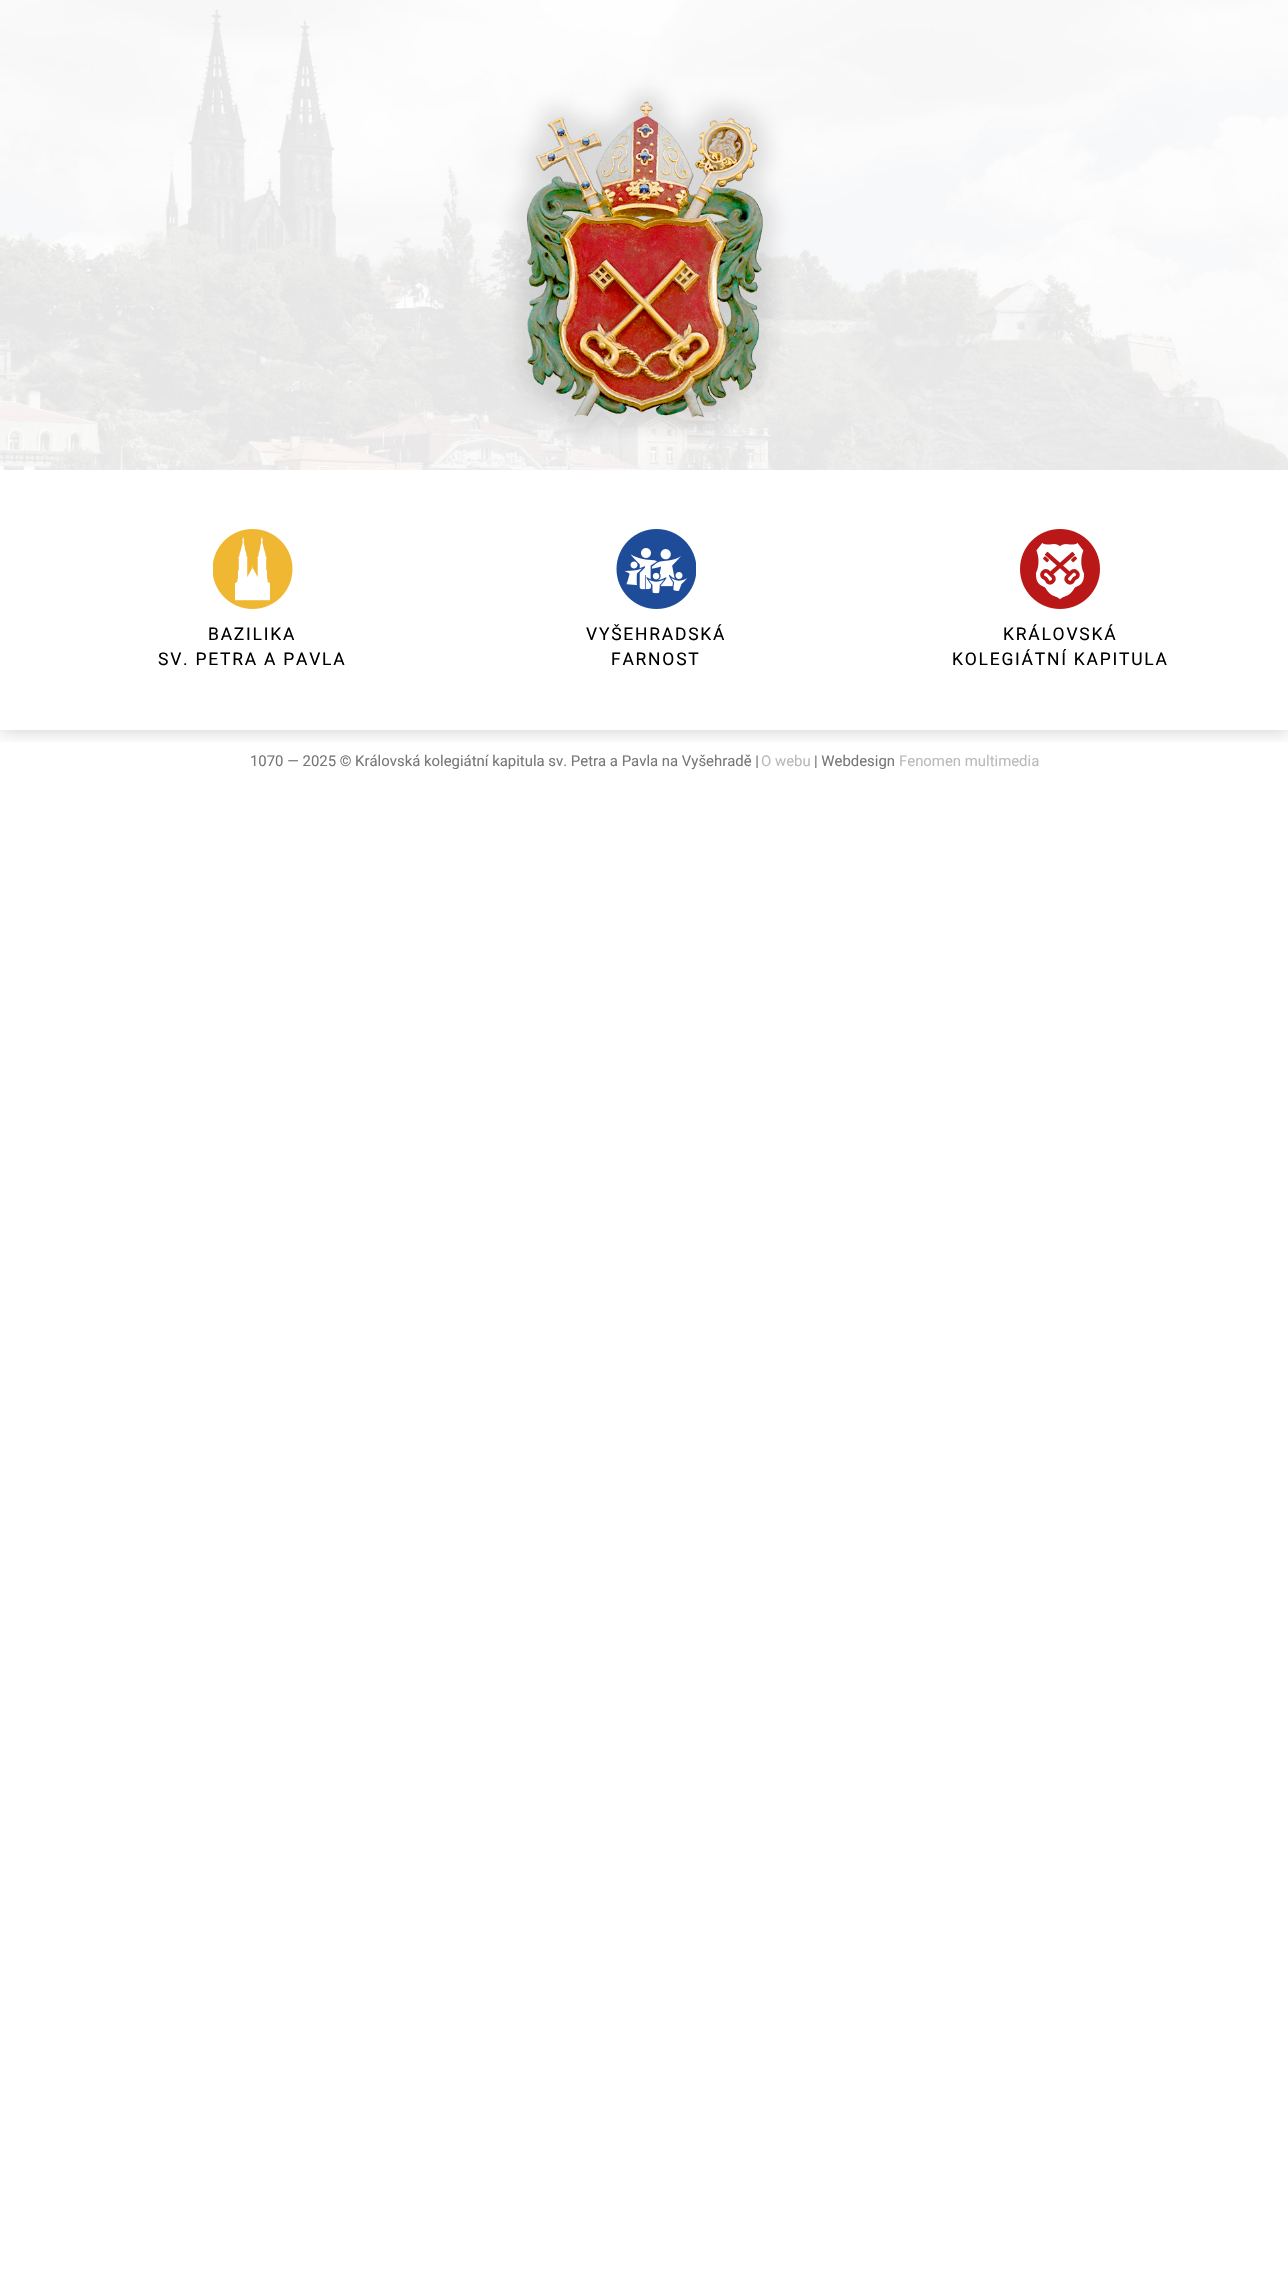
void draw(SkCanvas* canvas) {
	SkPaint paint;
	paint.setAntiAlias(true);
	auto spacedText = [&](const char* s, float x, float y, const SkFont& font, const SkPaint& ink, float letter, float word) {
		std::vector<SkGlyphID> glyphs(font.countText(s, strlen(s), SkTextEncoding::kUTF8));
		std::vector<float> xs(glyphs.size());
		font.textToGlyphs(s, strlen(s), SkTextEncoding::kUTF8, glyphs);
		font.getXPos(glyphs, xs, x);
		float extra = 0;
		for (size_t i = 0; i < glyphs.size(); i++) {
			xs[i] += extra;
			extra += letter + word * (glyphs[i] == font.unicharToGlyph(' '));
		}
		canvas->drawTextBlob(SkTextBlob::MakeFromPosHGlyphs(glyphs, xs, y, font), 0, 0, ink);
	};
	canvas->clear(0xffffffff);
	canvas->save();
	canvas->clipRect(SkRect::MakeXYWH(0, 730, 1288, 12));
	paint.setColor(0x33000000);
	paint.setMaskFilter(SkMaskFilter::MakeBlur(kNormal_SkBlurStyle, 9.5));
	canvas->drawRect(SkRect::MakeXYWH(0, 470, 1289, 260), paint);
	paint.setMaskFilter(nullptr);
	canvas->restore();
	canvas->drawImageRect(SkImages::DeferredFromEncodedData(SkData::MakeFromFileName("img1.png")), SkRect::MakeXYWH(0, 0, 1288, 470), SkSamplingOptions());
	canvas->drawImageRect(SkImages::DeferredFromEncodedData(SkData::MakeFromFileName("img2.png")), SkRect::MakeXYWH(213, 529, 80, 80), SkSamplingOptions());
	SkFont f1(fontMgr->matchFamilyStyle("Roboto", SkFontStyle::Normal()), 17.5);
	f1.setSubpixel(true);
	paint.setColor(0xff000000);
	spacedText("BAZILIKA", 208, 640, f1, paint, 1.75, 0);
	spacedText("SV. PETRA A PAVLA", 158, 665, f1, paint, 1.75, 0);
	canvas->drawImageRect(SkImages::DeferredFromEncodedData(SkData::MakeFromFileName("img3.png")), SkRect::MakeXYWH(616, 529, 80, 80), SkSamplingOptions());
	spacedText("VYŠEHRADSKÁ", 586, 640, f1, paint, 1.75, 0);
	spacedText("FARNOST", 611, 665, f1, paint, 1.75, 0);
	canvas->drawImageRect(SkImages::DeferredFromEncodedData(SkData::MakeFromFileName("img4.png")), SkRect::MakeXYWH(1020, 529, 80, 80), SkSamplingOptions());
	spacedText("KRÁLOVSKÁ", 1003, 640, f1, paint, 1.75, 0);
	spacedText("KOLEGIÁTNÍ KAPITULA", 952, 665, f1, paint, 1.75, 0);
	SkFont f2(fontMgr->matchFamilyStyle("Roboto", SkFontStyle::Normal()), 14.9);
	f2.setSubpixel(true);
	paint.setColor(0xff777777);
	canvas->drawString("1070 — 2025 © Královská kolegiátní kapitula sv. Petra a Pavla na Vyšehradě |", 250, 766, f2, paint);
	paint.setColor(0xffbababa);
	canvas->drawString("O webu", 761, 766, f2, paint);
	paint.setColor(0xff777777);
	canvas->drawString("| Webdesign", 814, 766, f2, paint);
	paint.setColor(0xffbababa);
	canvas->drawString("Fenomen multimedia", 899, 766, f2, paint);
}
